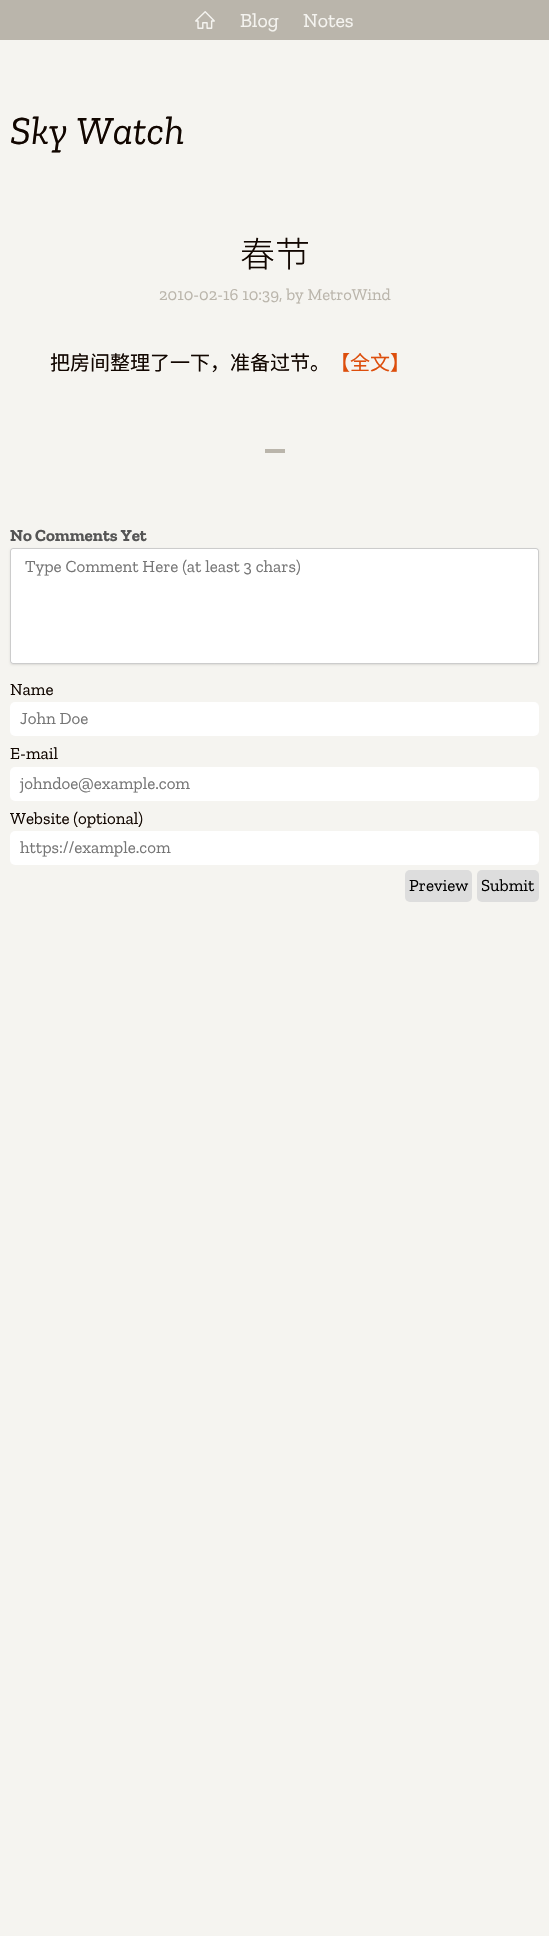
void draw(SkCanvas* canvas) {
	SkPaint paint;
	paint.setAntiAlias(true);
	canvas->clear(0xfff5f4f0);
	paint.setColor(0xffbab5ab);
	canvas->drawRect(SkRect::MakeXYWH(0, 0, 549, 40), paint);
	canvas->drawImageRect(SkImages::DeferredFromEncodedData(SkData::MakeFromFileName("img1.png")), SkRect::MakeXYWH(195, 11, 20, 18), SkSamplingOptions());
	SkFont f1(fontMgr->matchFamilyStyle("Zilla Slab", SkFontStyle::Normal()), 20);
	f1.setSubpixel(true);
	paint.setColor(0xfff5f4f0);
	canvas->drawString("Blog", 240, 27, f1, paint);
	canvas->drawString("Notes", 303, 27, f1, paint);
	SkFont f2(fontMgr->matchFamilyStyle("Zilla Slab", SkFontStyle::Italic()), 40);
	f2.setSubpixel(true);
	paint.setColor(0xff110600);
	canvas->drawString("Sky Watch", 10, 144, f2, paint);
	SkFont f3(fontMgr->matchFamilyStyle("Noto Sans CJK SC", SkFontStyle(300, SkFontStyle::kNormal_Width, SkFontStyle::kUpright_Slant)), 35);
	f3.setSubpixel(true);
	canvas->drawString("春节", 240, 267, f3, paint);
	SkFont f4(fontMgr->matchFamilyStyle("Zilla Slab", SkFontStyle::Normal()), 16.7);
	f4.setSubpixel(true);
	paint.setColor(0xffbab5ab);
	canvas->drawString("2010-02-16 10:39, by MetroWind", 159, 300, f4, paint);
	SkFont f5(fontMgr->matchFamilyStyle("Noto Sans CJK SC", SkFontStyle::Normal()), 20);
	f5.setSubpixel(true);
	paint.setColor(0xff110600);
	canvas->drawString("把房间整理了一下，准备过节。", 50, 370, f5, paint);
	paint.setColor(0xffdd4e0c);
	canvas->drawString("【全文】", 330, 370, f5, paint);
	paint.setColor(0xffbab5ab);
	canvas->drawRect(SkRect::MakeXYWH(265, 449, 20, 4), paint);
	SkFont f6(fontMgr->matchFamilyStyle("Zilla Slab", SkFontStyle::Bold()), 17);
	f6.setSubpixel(true);
	paint.setColor(0xff555555);
	canvas->drawString("No Comments Yet", 10, 541, f6, paint);
	paint.setColor(0x1a000000);
	paint.setMaskFilter(SkMaskFilter::MakeBlur(kNormal_SkBlurStyle, 1));
	canvas->drawRoundRect(SkRect::MakeXYWH(10, 549, 529, 116), 3, 3, paint);
	paint.setMaskFilter(nullptr);
	paint.setColor(0xffffffff);
	canvas->drawRoundRect(SkRect::MakeXYWH(10, 548, 529, 116), 3, 3, paint);
	paint.setStroke(true);
	paint.setStrokeWidth(1);
	paint.setColor(0x33000000);
	canvas->drawRoundRect(SkRect::MakeXYWH(10.5, 548.5, 528, 115), 2.5, 2.5, paint);
	SkFont f7(fontMgr->matchFamilyStyle("Zilla Slab", SkFontStyle::Normal()), 17);
	f7.setSubpixel(true);
	paint.setStroke(false);
	paint.setColor(0xff757575);
	canvas->drawString("Type Comment Here (at least 3 chars)", 25, 572, f7, paint);
	paint.setColor(0xff110600);
	canvas->drawString("Name", 10, 695, f7, paint);
	paint.setColor(0xffffffff);
	canvas->drawRoundRect(SkRect::MakeXYWH(10, 702, 529, 34), 5, 5, paint);
	paint.setColor(0xff757575);
	canvas->drawString("John Doe", 20, 724, f7, paint);
	paint.setColor(0xff110600);
	canvas->drawString("E-mail", 10, 759, f7, paint);
	paint.setColor(0xffffffff);
	canvas->drawRoundRect(SkRect::MakeXYWH(10, 767, 529, 34), 5, 5, paint);
	paint.setColor(0xff757575);
	canvas->drawString("johndoe@example.com", 20, 789, f7, paint);
	paint.setColor(0xff110600);
	canvas->drawString("Website (optional)", 10, 824, f7, paint);
	paint.setColor(0xffffffff);
	canvas->drawRoundRect(SkRect::MakeXYWH(10, 831, 529, 34), 5, 5, paint);
	paint.setColor(0xff757575);
	canvas->drawString("https://example.com", 20, 853, f7, paint);
	paint.setColor(0xffdddddd);
	canvas->drawRoundRect(SkRect::MakeXYWH(405, 870, 67, 32), 5, 5, paint);
	paint.setColor(0xff000000);
	canvas->drawString("Preview", 409, 891, f7, paint);
	paint.setColor(0xffdddddd);
	canvas->drawRoundRect(SkRect::MakeXYWH(477, 870, 62, 32), 5, 5, paint);
	paint.setColor(0xff000000);
	canvas->drawString("Submit", 481, 891, f7, paint);
}
